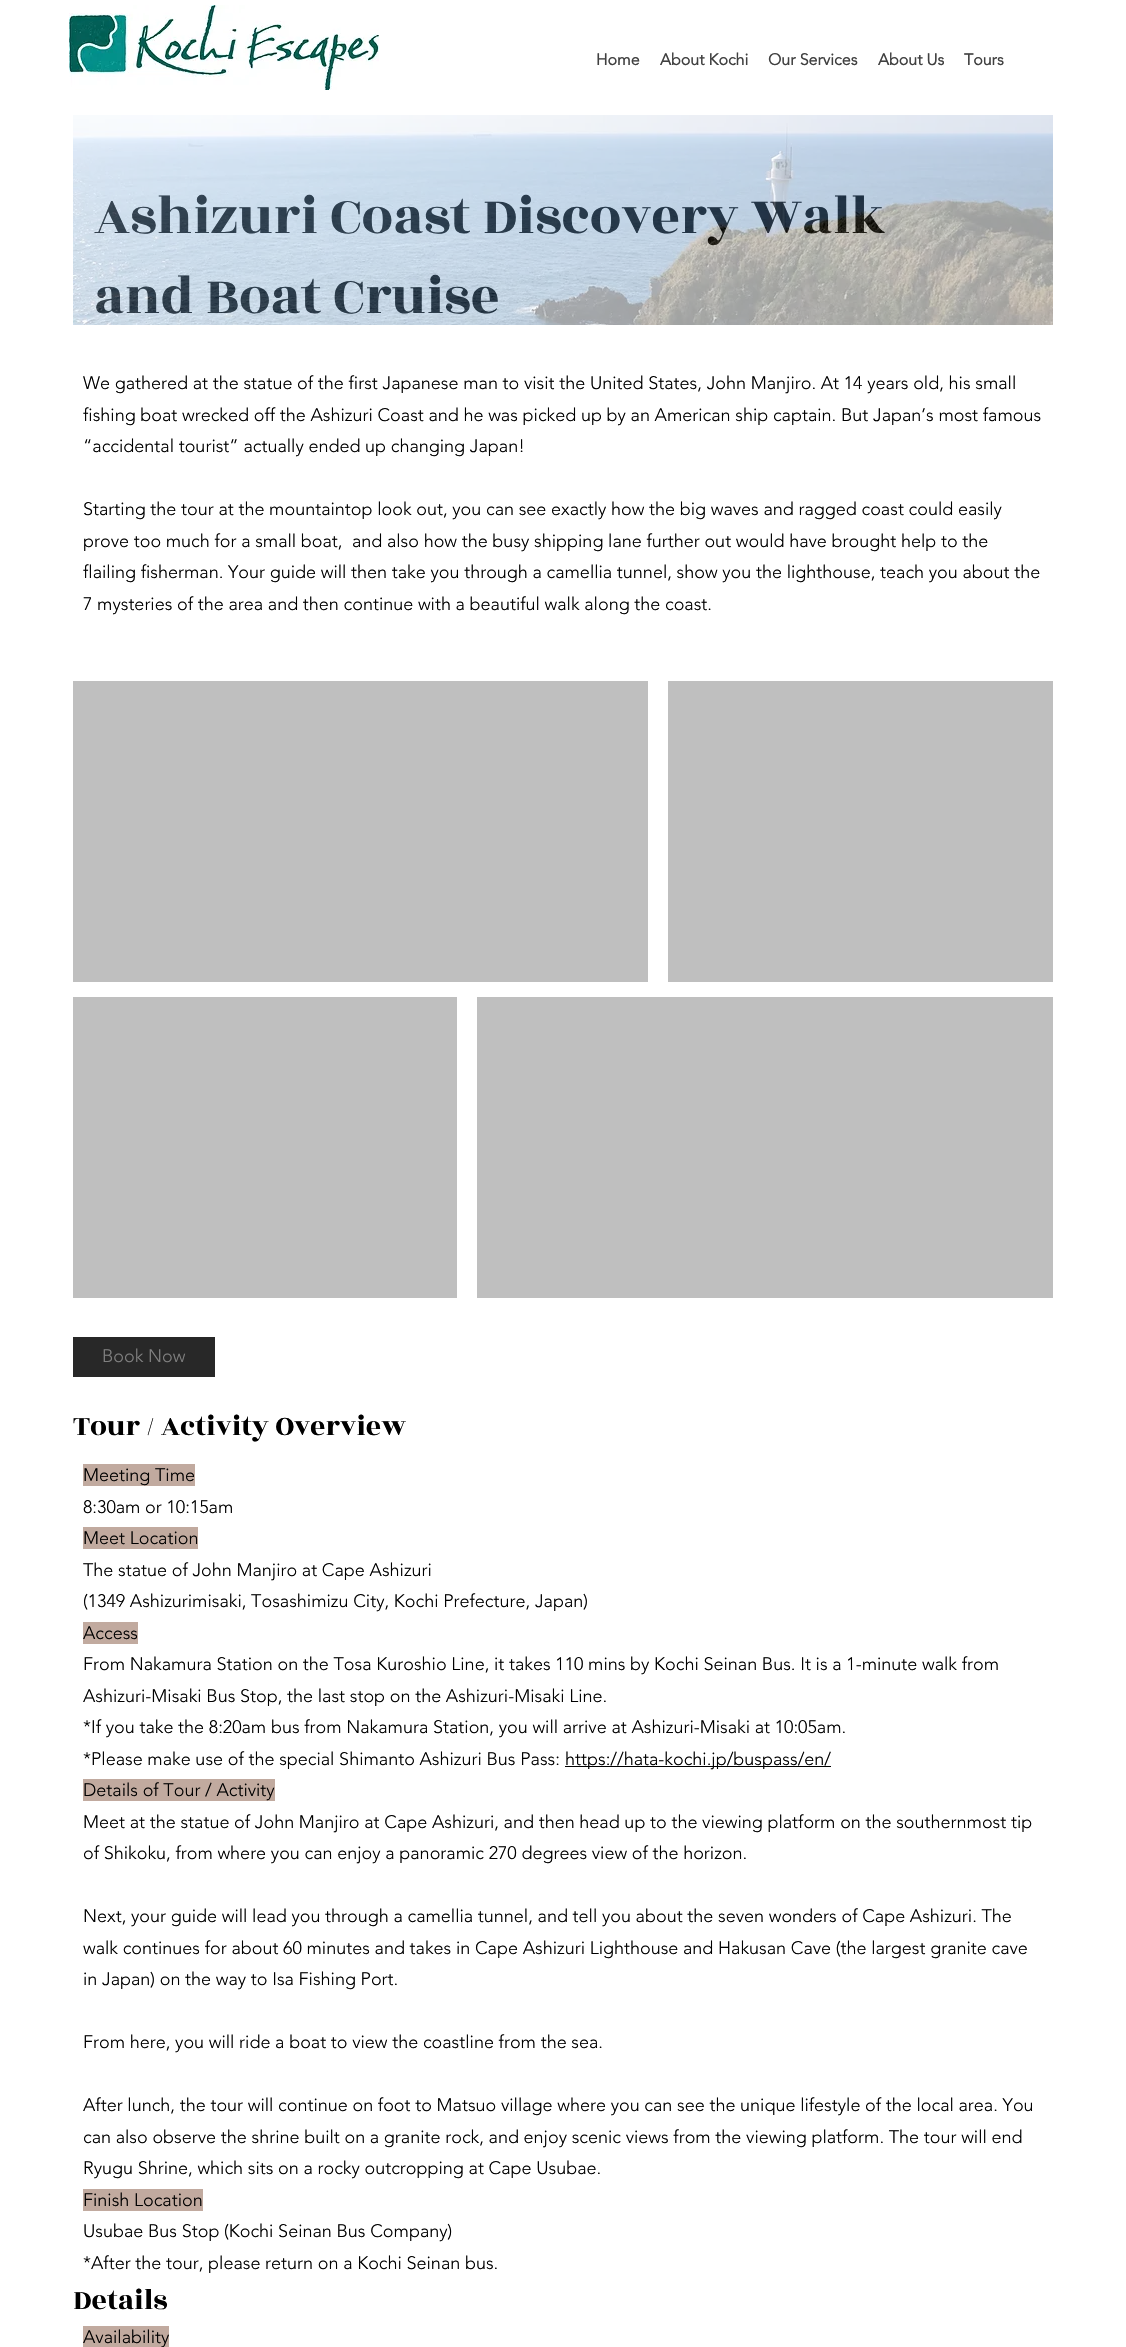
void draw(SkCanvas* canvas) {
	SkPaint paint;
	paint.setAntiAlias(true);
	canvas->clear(0xffffffff);
	canvas->drawImageRect(SkImages::DeferredFromEncodedData(SkData::MakeFromFileName("img1.png")), SkRect::MakeXYWH(69, 5, 310, 85), SkSamplingOptions());
	SkFont f1(fontMgr->matchFamilyStyle("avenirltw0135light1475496", SkFontStyle::Bold()), 16);
	f1.setSubpixel(true);
	paint.setColor(0xff404040);
	canvas->drawString("Home", 596, 65, f1, paint);
	canvas->drawString("About Kochi", 660, 65, f1, paint);
	canvas->drawString("Our Services", 768, 65, f1, paint);
	canvas->drawString("About Us", 878, 65, f1, paint);
	canvas->drawString("Tours", 964, 65, f1, paint);
	SkFont f2(fontMgr->matchFamilyStyle("Rozha One", SkFontStyle::Normal()), 56);
	f2.setSubpixel(true);
	paint.setColor(0xff000000);
	canvas->drawString("Ashizuri Coast Discovery Walk", 94, 233, f2, paint);
	canvas->drawString("and Boat Cruise", 94, 313, f2, paint);
	canvas->drawImageRect(SkImages::DeferredFromEncodedData(SkData::MakeFromFileName("img2.png")), SkRect::MakeXYWH(73, 115, 980, 210), SkSamplingOptions());
	SkFont f3(fontMgr->matchFamilyStyle("avenirltw0135light1475496", SkFontStyle(300, SkFontStyle::kNormal_Width, SkFontStyle::kUpright_Slant)), 18);
	f3.setSubpixel(true);
	canvas->drawString("We gathered at the statue of the first Japanese man to visit the United States, John Manjiro. At 14 years old, his small", 83, 389, f3, paint);
	canvas->drawString("fishing boat wrecked off the Ashizuri Coast and he was picked up by an American ship captain. But Japan’s most famous", 83, 421, f3, paint);
	canvas->drawString("“accidental tourist” actually ended up changing Japan!", 83, 452, f3, paint);
	canvas->drawString("Starting the tour at the mountaintop look out, you can see exactly how the big waves and ragged coast could easily", 83, 515, f3, paint);
	canvas->drawString("prove too much for a small boat,  and also how the busy shipping lane further out would have brought help to the", 83, 547, f3, paint);
	canvas->drawString("flailing fisherman. Your guide will then take you through a camellia tunnel, show you the lighthouse, teach you about the", 83, 578, f3, paint);
	canvas->drawString("7 mysteries of the area and then continue with a beautiful walk along the coast.", 83, 610, f3, paint);
	paint.setColor(0xffbfbfbf);
	canvas->drawRect(SkRect::MakeXYWH(73, 681, 575, 301), paint);
	canvas->drawRect(SkRect::MakeXYWH(668, 681, 385, 301), paint);
	canvas->drawRect(SkRect::MakeXYWH(73, 997, 384, 301), paint);
	canvas->drawRect(SkRect::MakeXYWH(477, 997, 576, 301), paint);
	paint.setColor(0xff282828);
	canvas->drawRect(SkRect::MakeXYWH(73, 1337, 142, 40), paint);
	paint.setColor(0xff808080);
	canvas->drawString("Book Now", 102, 1362, f3, paint);
	SkFont f4(fontMgr->matchFamilyStyle("Rozha One", SkFontStyle::Normal()), 30);
	f4.setSubpixel(true);
	paint.setColor(0xff000000);
	canvas->drawString("Tour / Activity Overview", 73, 1435, f4, paint);
	paint.setColor(0xffc1aa9f);
	canvas->drawRect(SkRect::MakeXYWH(83, 1464, 112, 22), paint);
	paint.setColor(0xff000000);
	canvas->drawString("Meeting Time", 83, 1481, f3, paint);
	canvas->drawString("8:30am or 10:15am", 83, 1513, f3, paint);
	paint.setColor(0xffc1aa9f);
	canvas->drawRect(SkRect::MakeXYWH(83, 1527, 115, 22), paint);
	paint.setColor(0xff000000);
	canvas->drawString("Meet Location", 83, 1544, f3, paint);
	canvas->drawString("The statue of John Manjiro at Cape Ashizuri", 83, 1576, f3, paint);
	canvas->drawString("(1349 Ashizurimisaki, Tosashimizu City, Kochi Prefecture, Japan)", 83, 1607, f3, paint);
	paint.setColor(0xffc1aa9f);
	canvas->drawRect(SkRect::MakeXYWH(83, 1622, 55, 22), paint);
	paint.setColor(0xff000000);
	canvas->drawString("Access", 83, 1639, f3, paint);
	canvas->drawString("From Nakamura Station on the Tosa Kuroshio Line, it takes 110 mins by Kochi Seinan Bus. It is a 1-minute walk from", 83, 1670, f3, paint);
	canvas->drawString("Ashizuri-Misaki Bus Stop, the last stop on the Ashizuri-Misaki Line.", 83, 1702, f3, paint);
	canvas->drawString("*If you take the 8:20am bus from Nakamura Station, you will arrive at Ashizuri-Misaki at 10:05am.", 83, 1733, f3, paint);
	canvas->drawString("*Please make use of the special Shimanto Ashizuri Bus Pass:", 83, 1765, f3, paint);
	canvas->drawRect(SkRect::MakeXYWH(565, 1766, 266, 1), paint);
	canvas->drawString("https://hata-kochi.jp/buspass/en/", 565, 1765, f3, paint);
	paint.setColor(0xffc1aa9f);
	canvas->drawRect(SkRect::MakeXYWH(83, 1779, 192, 22), paint);
	paint.setColor(0xff000000);
	canvas->drawString("Details of Tour / Activity", 83, 1796, f3, paint);
	canvas->drawString("Meet at the statue of John Manjiro at Cape Ashizuri, and then head up to the viewing platform on the southernmost tip", 83, 1828, f3, paint);
	canvas->drawString("of Shikoku, from where you can enjoy a panoramic 270 degrees view of the horizon.", 83, 1859, f3, paint);
	canvas->drawString("Next, your guide will lead you through a camellia tunnel, and tell you about the seven wonders of Cape Ashizuri. The", 83, 1922, f3, paint);
	canvas->drawString("walk continues for about 60 minutes and takes in Cape Ashizuri Lighthouse and Hakusan Cave (the largest granite cave", 83, 1954, f3, paint);
	canvas->drawString("in Japan) on the way to Isa Fishing Port.", 83, 1985, f3, paint);
	canvas->drawString("From here, you will ride a boat to view the coastline from the sea.", 83, 2048, f3, paint);
	canvas->drawString("After lunch, the tour will continue on foot to Matsuo village where you can see the unique lifestyle of the local area. You", 83, 2111, f3, paint);
	canvas->drawString("can also observe the shrine built on a granite rock, and enjoy scenic views from the viewing platform. The tour will end", 83, 2143, f3, paint);
	canvas->drawString("Ryugu Shrine, which sits on a rocky outcropping at Cape Usubae.", 83, 2174, f3, paint);
	paint.setColor(0xffc1aa9f);
	canvas->drawRect(SkRect::MakeXYWH(83, 2189, 120, 22), paint);
	paint.setColor(0xff000000);
	canvas->drawString("Finish Location", 83, 2206, f3, paint);
	canvas->drawString("Usubae Bus Stop (Kochi Seinan Bus Company)", 83, 2237, f3, paint);
	canvas->drawString("*After the tour, please return on a Kochi Seinan bus.", 83, 2269, f3, paint);
	canvas->drawString("Details", 73, 2309, f4, paint);
	paint.setColor(0xffc1aa9f);
	canvas->drawRect(SkRect::MakeXYWH(83, 2326, 86, 21), paint);
	paint.setColor(0xff000000);
	canvas->drawString("Availability", 83, 2343, f3, paint);
}
